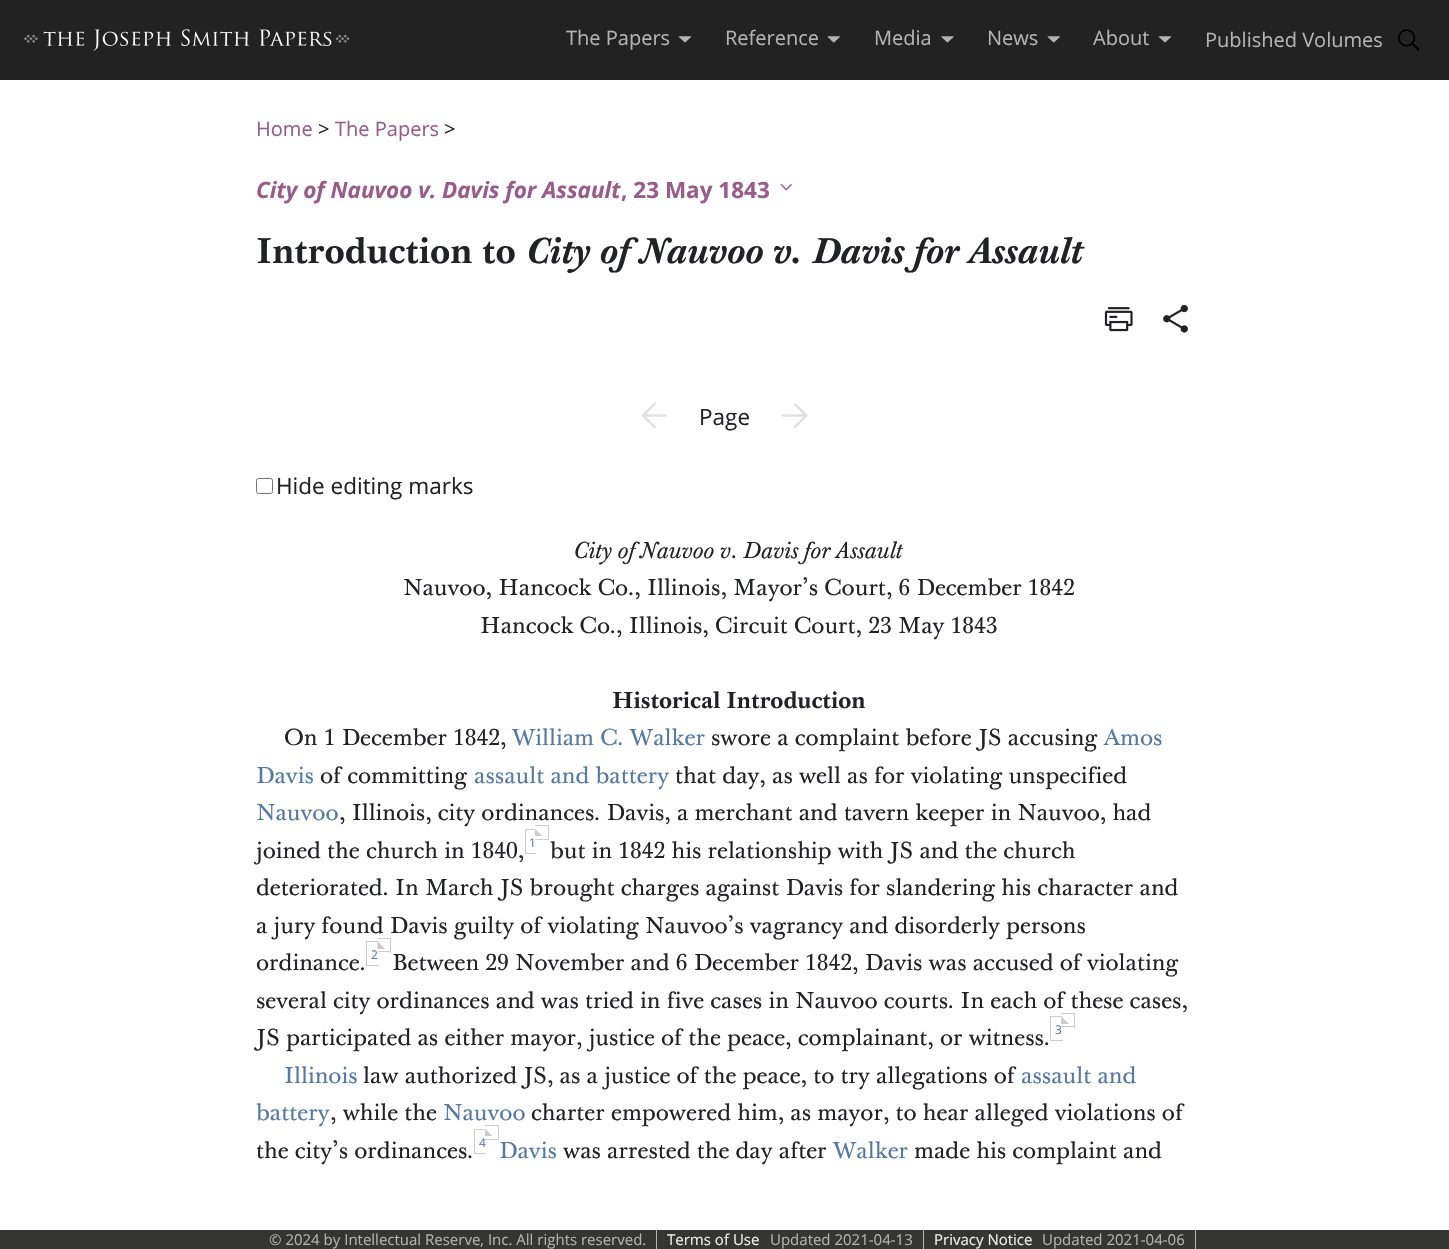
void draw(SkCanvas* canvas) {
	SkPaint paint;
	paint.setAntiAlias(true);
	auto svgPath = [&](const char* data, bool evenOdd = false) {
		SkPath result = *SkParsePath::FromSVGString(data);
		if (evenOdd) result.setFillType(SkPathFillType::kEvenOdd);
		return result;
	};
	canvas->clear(0xffffffff);
	paint.setColor(0xff222222);
	canvas->drawRect(SkRect::MakeXYWH(0, 0, 1449, 80), paint);
	canvas->drawImageRect(SkImages::DeferredFromEncodedData(SkData::MakeFromFileName("img1.png")), SkRect::MakeXYWH(24, 29, 326, 22), SkSamplingOptions());
	SkFont f1(fontMgr->matchFamilyStyle("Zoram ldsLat", SkFontStyle::Normal()), 20);
	f1.setSubpixel(true);
	paint.setColor(0xffb3b3b3);
	canvas->drawString("The Papers", 566, 45, f1, paint);
	canvas->drawImageRect(SkImages::DeferredFromEncodedData(SkData::MakeFromFileName("img2.png")), SkRect::MakeXYWH(678, 36, 14, 7), SkSamplingOptions());
	canvas->drawString("Reference", 725, 45, f1, paint);
	canvas->drawImageRect(SkImages::DeferredFromEncodedData(SkData::MakeFromFileName("img3.png")), SkRect::MakeXYWH(827, 36, 13, 7), SkSamplingOptions());
	canvas->drawString("Media", 874, 45, f1, paint);
	canvas->drawImageRect(SkImages::DeferredFromEncodedData(SkData::MakeFromFileName("img4.png")), SkRect::MakeXYWH(941, 36, 13, 7), SkSamplingOptions());
	canvas->drawString("News", 987, 45, f1, paint);
	canvas->drawImageRect(SkImages::DeferredFromEncodedData(SkData::MakeFromFileName("img3.png")), SkRect::MakeXYWH(1047, 36, 13, 7), SkSamplingOptions());
	canvas->drawString("About", 1093, 45, f1, paint);
	canvas->drawImageRect(SkImages::DeferredFromEncodedData(SkData::MakeFromFileName("img2.png")), SkRect::MakeXYWH(1158, 36, 14, 7), SkSamplingOptions());
	canvas->drawString("Published Volumes", 1205, 47, f1, paint);
	canvas->drawImageRect(SkImages::DeferredFromEncodedData(SkData::MakeFromFileName("img5.png")), SkRect::MakeXYWH(1398, 29, 22, 22), SkSamplingOptions());
	paint.setColor(0xff995c8a);
	canvas->drawString("Home", 256, 136, f1, paint);
	paint.setColor(0xff212225);
	canvas->drawString(">", 318, 136, f1, paint);
	paint.setColor(0xff995c8a);
	canvas->drawString("The Papers", 335, 136, f1, paint);
	paint.setColor(0xff212225);
	canvas->drawString(">", 444, 136, f1, paint);
	SkFont f2(fontMgr->matchFamilyStyle("Zoram ldsLat", SkFontStyle::BoldItalic()), 22.5);
	f2.setSubpixel(true);
	paint.setColor(0xff995c8a);
	canvas->drawString("City of Nauvoo v. Davis for Assault", 256, 198, f2, paint);
	SkFont f3(fontMgr->matchFamilyStyle("Zoram ldsLat", SkFontStyle::Bold()), 22.5);
	f3.setSubpixel(true);
	canvas->drawString(", 23 May 1843", 621, 198, f3, paint);
	canvas->drawImageRect(SkImages::DeferredFromEncodedData(SkData::MakeFromFileName("img6.png")), SkRect::MakeXYWH(780, 184, 12, 7), SkSamplingOptions());
	SkFont f4(fontMgr->matchFamilyStyle("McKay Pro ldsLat", SkFontStyle::Bold()), 35);
	f4.setSubpixel(true);
	paint.setColor(0xff212225);
	canvas->drawString("Introduction to", 256, 263, f4, paint);
	SkFont f5(fontMgr->matchFamilyStyle("McKay Pro ldsLat", SkFontStyle::BoldItalic()), 35);
	f5.setSubpixel(true);
	canvas->drawString("City of Nauvoo v. Davis for Assault", 526, 263, f5, paint);
	canvas->drawImageRect(SkImages::DeferredFromEncodedData(SkData::MakeFromFileName("img7.png")), SkRect::MakeXYWH(1104, 307, 29, 25), SkSamplingOptions());
	canvas->drawImageRect(SkImages::DeferredFromEncodedData(SkData::MakeFromFileName("img8.png")), SkRect::MakeXYWH(1163, 304, 25, 29), SkSamplingOptions());
	canvas->drawImageRect(SkImages::DeferredFromEncodedData(SkData::MakeFromFileName("img9.png")), SkRect::MakeXYWH(641, 402, 26, 27), SkSamplingOptions());
	SkFont f6(fontMgr->matchFamilyStyle("Zoram ldsLat", SkFontStyle::Normal()), 22.5);
	f6.setSubpixel(true);
	canvas->drawString("Page", 699, 425, f6, paint);
	canvas->drawImageRect(SkImages::DeferredFromEncodedData(SkData::MakeFromFileName("img10.png")), SkRect::MakeXYWH(781, 403, 27, 25), SkSamplingOptions());
	paint.setStroke(true);
	paint.setStrokeWidth(1);
	paint.setColor(0xff767676);
	canvas->drawRoundRect(SkRect::MakeXYWH(256.5, 478.5, 16, 15), 2, 2, paint);
	paint.setStroke(false);
	paint.setColor(0xff212225);
	canvas->drawString("Hide editing marks", 276, 494, f6, paint);
	SkFont f7(fontMgr->matchFamilyStyle("McKay Pro ldsLat", SkFontStyle::Italic()), 22.5);
	f7.setSubpixel(true);
	canvas->drawString("City of Nauvoo v. Davis for Assault", 574, 558, f7, paint);
	SkFont f8(fontMgr->matchFamilyStyle("McKay Pro ldsLat", SkFontStyle::Normal()), 22.5);
	f8.setSubpixel(true);
	canvas->drawString("Nauvoo, Hancock Co., Illinois, Mayor’s Court, 6 December 1842", 403, 595, f8, paint);
	canvas->drawString("Hancock Co., Illinois, Circuit Court, 23 May 1843", 480, 633, f8, paint);
	SkFont f9(fontMgr->matchFamilyStyle("McKay Pro ldsLat", SkFontStyle::Bold()), 22.5);
	f9.setSubpixel(true);
	canvas->drawString("Historical Introduction", 612, 708, f9, paint);
	canvas->drawString("On 1 December 1842,", 284, 745, f8, paint);
	paint.setColor(0xff5378a6);
	canvas->drawString("William C. Walker", 512, 745, f8, paint);
	paint.setColor(0xff212225);
	canvas->drawString("swore a complaint before JS accusing", 711, 745, f8, paint);
	paint.setColor(0xff5378a6);
	canvas->drawString("Amos", 1104, 745, f8, paint);
	canvas->drawString("Davis", 256, 783, f8, paint);
	paint.setColor(0xff212225);
	canvas->drawString("of committing", 320, 783, f8, paint);
	paint.setColor(0xff5378a6);
	canvas->drawString("assault and battery", 474, 783, f8, paint);
	paint.setColor(0xff212225);
	canvas->drawString("that day, as well as for violating unspecified", 675, 783, f8, paint);
	paint.setColor(0xff5378a6);
	canvas->drawString("Nauvoo", 256, 820, f8, paint);
	paint.setColor(0xff212225);
	canvas->drawString(", Illinois, city ordinances. Davis, a merchant and tavern keeper in Nauvoo, had", 339, 820, f8, paint);
	canvas->drawString("joined the church in 1840,", 256, 858, f8, paint);
	paint.setColor(0xffcccccc);
	canvas->drawRect(SkRect::MakeXYWH(525, 829, 11, 1), paint);
	canvas->drawRect(SkRect::MakeXYWH(525, 853, 11, 1), paint);
	canvas->drawRect(SkRect::MakeXYWH(525, 829, 1, 25), paint);
	paint.setColor(0xffffffff);
	canvas->drawRect(SkRect::MakeXYWH(535, 829, 1, 1), paint);
	paint.setColor(0xffcccccc);
	canvas->drawRect(SkRect::MakeXYWH(535, 825, 14, 1), paint);
	canvas->drawRect(SkRect::MakeXYWH(548, 825, 1, 15), paint);
	canvas->drawRect(SkRect::MakeXYWH(535, 839, 14, 1), paint);
	canvas->drawPath(svgPath("M542.5 836H535V829Z"), paint);
	SkFont f10(fontMgr->matchFamilyStyle("Zoram ldsLat", SkFontStyle::Normal()), 12);
	f10.setSubpixel(true);
	paint.setColor(0xff5378a6);
	canvas->drawString("1", 529, 847, f10, paint);
	paint.setColor(0xff212225);
	canvas->drawString("but in 1842 his relationship with JS and the church", 550, 858, f8, paint);
	canvas->drawString("deteriorated. In March JS brought charges against Davis for slandering his character and", 256, 895, f8, paint);
	canvas->drawString("a jury found Davis guilty of violating Nauvoo’s vagrancy and disorderly persons", 256, 933, f8, paint);
	canvas->drawString("ordinance.", 256, 970, f8, paint);
	paint.setColor(0xffcccccc);
	canvas->drawRect(SkRect::MakeXYWH(366, 941, 13, 1), paint);
	canvas->drawRect(SkRect::MakeXYWH(366, 965, 13, 1), paint);
	canvas->drawRect(SkRect::MakeXYWH(366, 941, 1, 25), paint);
	paint.setColor(0xffffffff);
	canvas->drawRect(SkRect::MakeXYWH(378, 941, 1, 1), paint);
	paint.setColor(0xffcccccc);
	canvas->drawRect(SkRect::MakeXYWH(378, 938, 13, 1), paint);
	canvas->drawRect(SkRect::MakeXYWH(390, 938, 1, 15), paint);
	canvas->drawRect(SkRect::MakeXYWH(378, 951, 13, 1), paint);
	paint.setColor(0xffffffff);
	canvas->drawPath(svgPath("M385 941V949L377.5 941Z"), paint);
	paint.setColor(0xffcccccc);
	canvas->drawPath(svgPath("M385 949H377.5V941Z"), paint);
	paint.setColor(0xff5378a6);
	canvas->drawString("2", 371, 959, f10, paint);
	paint.setColor(0xff212225);
	canvas->drawString("Between 29 November and 6 December 1842, Davis was accused of violating", 392, 970, f8, paint);
	canvas->drawString("several city ordinances and was tried in five cases in Nauvoo courts. In each of these cases,", 256, 1008, f8, paint);
	canvas->drawString("JS participated as either mayor, justice of the peace, complainant, or witness.", 256, 1045, f8, paint);
	paint.setColor(0xffcccccc);
	canvas->drawRect(SkRect::MakeXYWH(1050, 1016, 13, 1), paint);
	canvas->drawRect(SkRect::MakeXYWH(1050, 1040, 13, 1), paint);
	canvas->drawRect(SkRect::MakeXYWH(1050, 1016, 1, 25), paint);
	paint.setColor(0xffffffff);
	canvas->drawRect(SkRect::MakeXYWH(1061, 1016, 2, 1), paint);
	paint.setColor(0xffcccccc);
	canvas->drawRect(SkRect::MakeXYWH(1061, 1013, 14, 1), paint);
	canvas->drawRect(SkRect::MakeXYWH(1074, 1013, 1, 15), paint);
	canvas->drawRect(SkRect::MakeXYWH(1061, 1026, 14, 1), paint);
	canvas->drawPath(svgPath("M1069 1024H1061V1016Z"), paint);
	paint.setColor(0xff5378a6);
	canvas->drawString("3", 1055, 1034, f10, paint);
	canvas->drawString("Illinois", 284, 1083, f8, paint);
	paint.setColor(0xff212225);
	canvas->drawString("law authorized JS, as a justice of the peace, to try allegations of", 363, 1083, f8, paint);
	paint.setColor(0xff5378a6);
	canvas->drawString("assault and", 1021, 1083, f8, paint);
	canvas->drawString("battery", 256, 1120, f8, paint);
	paint.setColor(0xff212225);
	canvas->drawString(", while the", 330, 1120, f8, paint);
	paint.setColor(0xff5378a6);
	canvas->drawString("Nauvoo", 443, 1120, f8, paint);
	paint.setColor(0xff212225);
	canvas->drawString("charter empowered him, as mayor, to hear alleged violations of", 531, 1120, f8, paint);
	canvas->drawString("the city’s ordinances.", 256, 1158, f8, paint);
	paint.setColor(0xffcccccc);
	canvas->drawRect(SkRect::MakeXYWH(474, 1129, 12, 1), paint);
	canvas->drawRect(SkRect::MakeXYWH(474, 1153, 12, 1), paint);
	canvas->drawRect(SkRect::MakeXYWH(474, 1129, 1, 25), paint);
	paint.setColor(0xffffffff);
	canvas->drawRect(SkRect::MakeXYWH(485, 1129, 1, 1), paint);
	paint.setColor(0xffcccccc);
	canvas->drawRect(SkRect::MakeXYWH(485, 1125, 14, 1), paint);
	canvas->drawRect(SkRect::MakeXYWH(498, 1125, 1, 15), paint);
	canvas->drawRect(SkRect::MakeXYWH(485, 1139, 14, 1), paint);
	canvas->drawPath(svgPath("M492.5 1136H485V1129Z"), paint);
	paint.setColor(0xff5378a6);
	canvas->drawString("4", 479, 1147, f10, paint);
	canvas->drawString("Davis", 499, 1158, f8, paint);
	paint.setColor(0xff212225);
	canvas->drawString("was arrested the day after", 563, 1158, f8, paint);
	paint.setColor(0xff5378a6);
	canvas->drawString("Walker", 833, 1158, f8, paint);
	paint.setColor(0xff212225);
	canvas->drawString("made his complaint and", 914, 1158, f8, paint);
	paint.setColor(0xff353533);
	canvas->drawRect(SkRect::MakeXYWH(0, 1230, 1449, 19), paint);
	SkFont f11(fontMgr->matchFamilyStyle("Zoram ldsLat", SkFontStyle::Normal()), 15);
	f11.setSubpixel(true);
	paint.setColor(0xffb3b3b3);
	canvas->drawString("© 2024 by Intellectual Reserve, Inc. All rights reserved.", 269, 1245, f11, paint);
	canvas->drawRect(SkRect::MakeXYWH(656, 1230, 1, 19), paint);
	paint.setColor(0xffeeeeee);
	canvas->drawString("Terms of Use", 667, 1245, f11, paint);
	paint.setColor(0xffb3b3b3);
	canvas->drawString("Updated 2021-04-13", 770, 1245, f11, paint);
	canvas->drawRect(SkRect::MakeXYWH(923, 1230, 1, 19), paint);
	paint.setColor(0xffeeeeee);
	canvas->drawString("Privacy Notice", 934, 1245, f11, paint);
	paint.setColor(0xffb3b3b3);
	canvas->drawString("Updated 2021-04-06", 1042, 1245, f11, paint);
	canvas->drawRect(SkRect::MakeXYWH(1195, 1230, 1, 19), paint);
}
